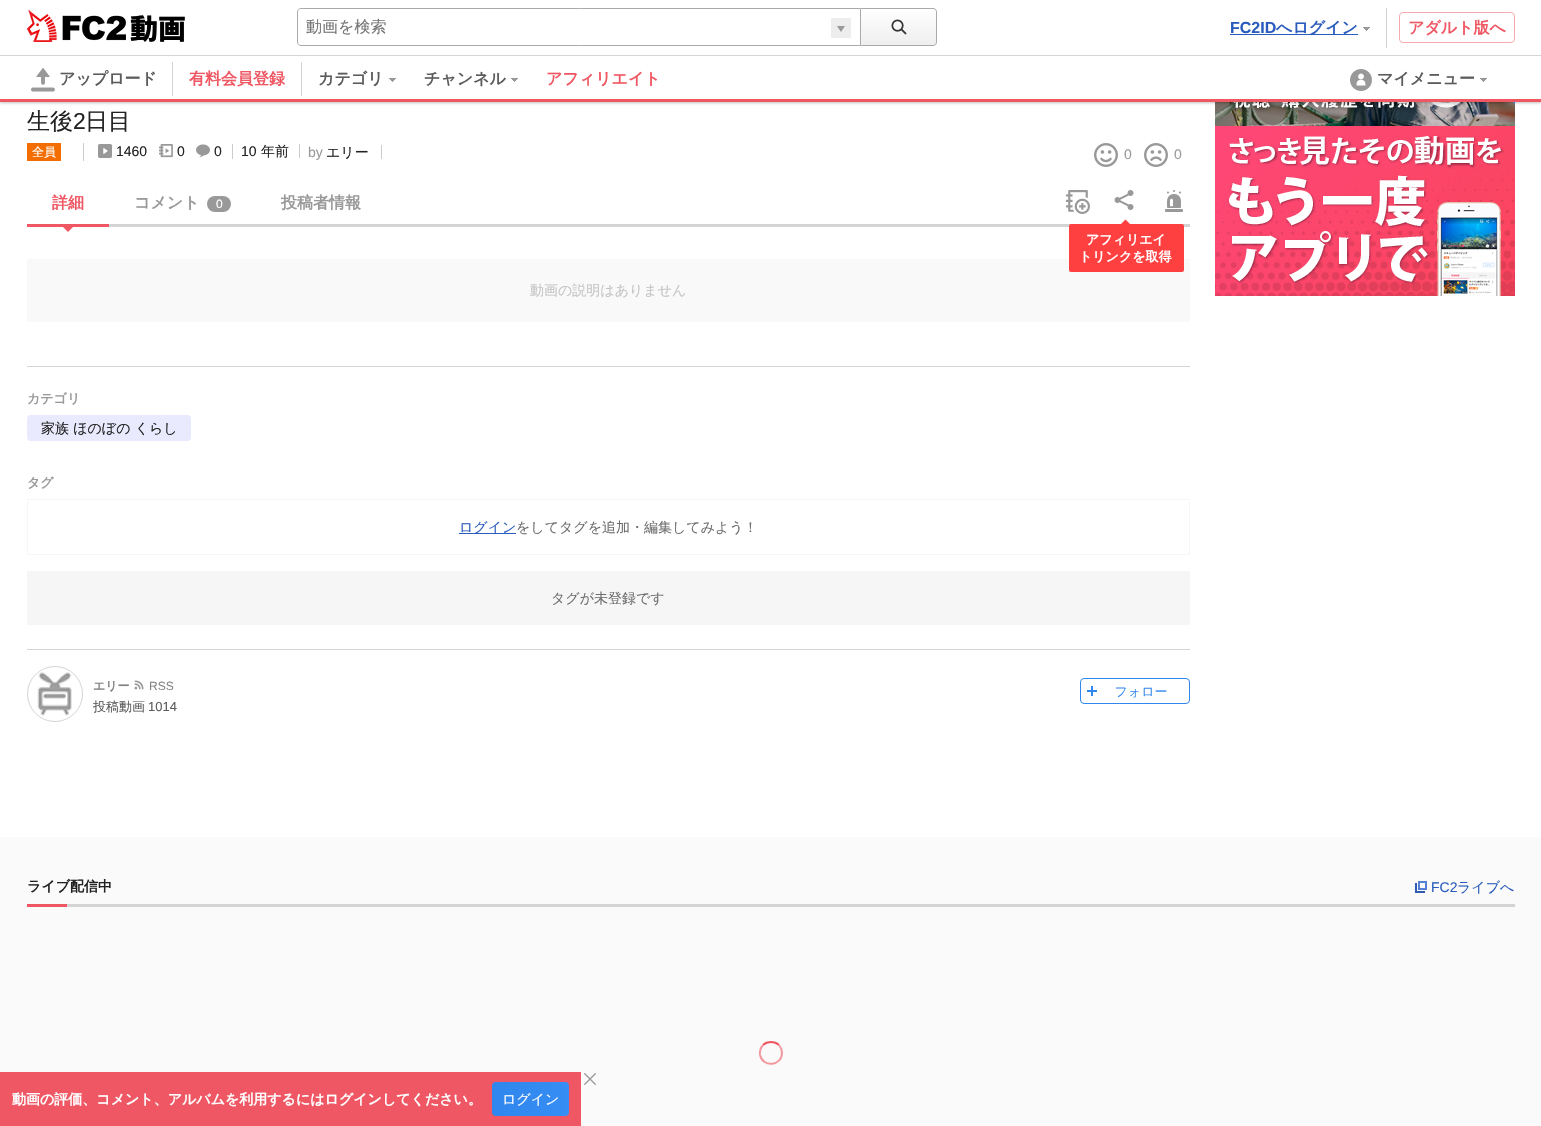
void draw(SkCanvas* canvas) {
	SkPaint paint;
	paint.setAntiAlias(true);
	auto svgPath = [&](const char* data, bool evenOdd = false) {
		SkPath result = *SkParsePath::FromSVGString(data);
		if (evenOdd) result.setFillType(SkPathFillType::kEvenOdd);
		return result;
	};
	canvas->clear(0xffffffff);
	canvas->drawImageRect(SkImages::DeferredFromEncodedData(SkData::MakeFromFileName("img17.png")), SkRect::MakeXYWH(1215, 102, 300, 194), SkSamplingOptions());
	paint.setColor(0x1f000000);
	paint.setMaskFilter(SkMaskFilter::MakeBlur(kNormal_SkBlurStyle, 1));
	canvas->drawRect(SkRect::MakeXYWH(0, 1, 1541, 102), paint);
	paint.setMaskFilter(nullptr);
	paint.setMaskFilter(SkMaskFilter::MakeBlur(kNormal_SkBlurStyle, 1.5));
	canvas->drawRect(SkRect::MakeXYWH(0, 1, 1541, 102), paint);
	paint.setMaskFilter(nullptr);
	paint.setColor(0xffffffff);
	canvas->drawRect(SkRect::MakeXYWH(0, 0, 1541, 99), paint);
	paint.setColor(0xffd4d4d4);
	canvas->drawRect(SkRect::MakeXYWH(0, 55, 1541, 1), paint);
	canvas->drawImageRect(SkImages::DeferredFromEncodedData(SkData::MakeFromFileName("img1.png")), SkRect::MakeXYWH(27, 10, 99, 32), SkSamplingOptions());
	SkFont f1(fontMgr->matchFamilyStyle("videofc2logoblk", SkFontStyle(900, SkFontStyle::kNormal_Width, SkFontStyle::kUpright_Slant)), 28);
	f1.setSubpixel(true);
	paint.setColor(0xff000000);
	canvas->drawString("動画", 130, 39, f1, paint);
	paint.setStroke(true);
	paint.setStrokeWidth(1);
	paint.setColor(0xffaaaaaa);
	canvas->drawPath(svgPath("M301 8.5H860.5V45.5H301C299 45.5 297.5 44 297.5 42V12C297.5 10 299 8.5 301 8.5Z"), paint);
	SkFont f2(fontMgr->matchFamilyStyle("WenQuanYi Zen Hei", SkFontStyle(500, SkFontStyle::kNormal_Width, SkFontStyle::kUpright_Slant)), 16);
	f2.setSubpixel(true);
	paint.setStroke(false);
	paint.setColor(0xff757575);
	canvas->drawString("動画を検索", 306, 32, f2, paint);
	canvas->save();
	canvas->clipPath(svgPath("M861 8H933C935 8 937 10 937 12V42C937 44 935 46 933 46H861Z"), true);
	{
		const SkColor colors[] = {0xffeeeeee, 0xffffffff};
		const float stops[] = {0, 1};
		const SkPoint ends[] = {{899, 45}, {899, 9}};
		paint.setShader(SkGradientShader::MakeLinear(ends, colors, stops, 2, SkTileMode::kClamp));
		paint.setAlpha(255);
	}
	canvas->drawRect(SkRect::MakeXYWH(861, 9, 76, 36), paint);
	canvas->restore();
	paint.setShader(nullptr);
	paint.setColor(0xffaaaaaa);
	canvas->drawPath(svgPath("M861 8H933C935 8 937 10 937 12V42C937 44 935 46 933 46H861ZM861 9H933C935 9 936 10 936 12V42C936 44 935 45 933 45H861Z", true), paint);
	paint.setColor(0xffededed);
	canvas->drawRect(SkRect::MakeXYWH(831, 18, 20, 20), paint);
	paint.setColor(0xff999999);
	canvas->drawPath(svgPath("M837 26H845L841 32Z"), paint);
	canvas->drawImageRect(SkImages::DeferredFromEncodedData(SkData::MakeFromFileName("img2.png")), SkRect::MakeXYWH(891, 19, 16, 16), SkSamplingOptions());
	SkFont f3(fontMgr->matchFamilyStyle("Liberation Sans", SkFontStyle::Bold()), 16);
	f3.setSubpixel(true);
	paint.setColor(0xff2a5cbd);
	canvas->drawString("FC2ID", 1230, 33, f3, paint);
	canvas->drawRect(SkRect::MakeXYWH(1230, 34, 128, 1), paint);
	SkFont f4(fontMgr->matchFamilyStyle("WenQuanYi Zen Hei", SkFontStyle::Bold()), 16);
	f4.setSubpixel(true);
	canvas->drawString("へログイン", 1276, 33, f4, paint);
	canvas->drawImageRect(SkImages::DeferredFromEncodedData(SkData::MakeFromFileName("img3.png")), SkRect::MakeXYWH(1363, 27, 7, 4), SkSamplingOptions());
	paint.setColor(0xffd4d4d4);
	canvas->drawRect(SkRect::MakeXYWH(1386, 8, 1, 40), paint);
	paint.setStroke(true);
	paint.setColor(0xfff7abb1);
	canvas->drawRoundRect(SkRect::MakeXYWH(1399.5, 12.5, 115, 30), 3.5, 3.5, paint);
	paint.setStroke(false);
	paint.setColor(0xffef5763);
	canvas->drawString("アダルト版へ", 1408, 33, f4, paint);
	paint.setColor(0xffd4d4d4);
	canvas->drawRect(SkRect::MakeXYWH(172, 62, 1, 34), paint);
	canvas->drawImageRect(SkImages::DeferredFromEncodedData(SkData::MakeFromFileName("img4.png")), SkRect::MakeXYWH(31, 68, 24, 24), SkSamplingOptions());
	paint.setColor(0xff5c5c5c);
	canvas->drawString("アップロード", 59, 84, f4, paint);
	paint.setColor(0xffd4d4d4);
	canvas->drawRect(SkRect::MakeXYWH(301, 62, 1, 34), paint);
	paint.setColor(0xffef5763);
	canvas->drawString("有料会員登録", 189, 84, f4, paint);
	paint.setColor(0xff5c5c5c);
	canvas->drawString("カテゴリ", 318, 84, f4, paint);
	canvas->drawImageRect(SkImages::DeferredFromEncodedData(SkData::MakeFromFileName("img3.png")), SkRect::MakeXYWH(389, 78, 7, 4), SkSamplingOptions());
	canvas->drawString("チャンネル", 424, 84, f4, paint);
	canvas->drawImageRect(SkImages::DeferredFromEncodedData(SkData::MakeFromFileName("img3.png")), SkRect::MakeXYWH(511, 78, 7, 4), SkSamplingOptions());
	paint.setColor(0xffef5763);
	canvas->drawString("アフィリエイト", 546, 84, f4, paint);
	canvas->drawImageRect(SkImages::DeferredFromEncodedData(SkData::MakeFromFileName("img5.png")), SkRect::MakeXYWH(1350, 69, 22, 22), SkSamplingOptions());
	paint.setColor(0xff5c5c5c);
	canvas->drawString("マイメニュー", 1377, 84, f4, paint);
	canvas->drawImageRect(SkImages::DeferredFromEncodedData(SkData::MakeFromFileName("img3.png")), SkRect::MakeXYWH(1480, 78, 7, 4), SkSamplingOptions());
	paint.setColor(0xffef5763);
	canvas->drawRect(SkRect::MakeXYWH(0, 99, 1541, 3), paint);
	SkFont f5(fontMgr->matchFamilyStyle("WenQuanYi Zen Hei", SkFontStyle(500, SkFontStyle::kNormal_Width, SkFontStyle::kUpright_Slant)), 23);
	f5.setSubpixel(true);
	paint.setColor(0xff222222);
	canvas->drawString("生後", 27, 129, f5, paint);
	SkFont f6(fontMgr->matchFamilyStyle("Liberation Sans", SkFontStyle::Normal()), 23);
	f6.setSubpixel(true);
	canvas->drawString("2", 73, 129, f6, paint);
	canvas->drawString("日目", 85, 129, f5, paint);
	paint.setColor(0xffcccccc);
	canvas->drawRect(SkRect::MakeXYWH(83, 143, 1, 18), paint);
	paint.setColor(0xfff46d00);
	canvas->drawRect(SkRect::MakeXYWH(27, 143, 34, 18), paint);
	SkFont f7(fontMgr->matchFamilyStyle("WenQuanYi Zen Hei", SkFontStyle(500, SkFontStyle::kNormal_Width, SkFontStyle::kUpright_Slant)), 12);
	f7.setSubpixel(true);
	paint.setColor(0xffffffff);
	canvas->drawString("全員", 32, 156, f7, paint);
	canvas->drawImageRect(SkImages::DeferredFromEncodedData(SkData::MakeFromFileName("img6.png")), SkRect::MakeXYWH(98, 144, 14, 14), SkSamplingOptions());
	SkFont f8(fontMgr->matchFamilyStyle("Liberation Sans", SkFontStyle::Normal()), 14);
	f8.setSubpixel(true);
	paint.setColor(0xff222222);
	canvas->drawString("1460", 116, 156, f8, paint);
	canvas->drawImageRect(SkImages::DeferredFromEncodedData(SkData::MakeFromFileName("img7.png")), SkRect::MakeXYWH(159, 144, 14, 14), SkSamplingOptions());
	canvas->drawString("0", 177, 156, f8, paint);
	paint.setColor(0xffcccccc);
	canvas->drawRect(SkRect::MakeXYWH(232, 144, 1, 15), paint);
	canvas->drawImageRect(SkImages::DeferredFromEncodedData(SkData::MakeFromFileName("img8.png")), SkRect::MakeXYWH(196, 144, 14, 14), SkSamplingOptions());
	paint.setColor(0xff222222);
	canvas->drawString("0", 214, 156, f8, paint);
	paint.setColor(0xffcccccc);
	canvas->drawRect(SkRect::MakeXYWH(299, 144, 1, 14), paint);
	paint.setColor(0xff222222);
	canvas->drawString("10", 241, 156, f8, paint);
	SkFont f9(fontMgr->matchFamilyStyle("WenQuanYi Zen Hei", SkFontStyle(500, SkFontStyle::kNormal_Width, SkFontStyle::kUpright_Slant)), 14);
	f9.setSubpixel(true);
	canvas->drawString("年前", 261, 156, f9, paint);
	paint.setColor(0xffcccccc);
	canvas->drawRect(SkRect::MakeXYWH(381, 145, 1, 14), paint);
	paint.setColor(0xff999999);
	canvas->drawString("by", 308, 157, f8, paint);
	paint.setColor(0xff222222);
	canvas->drawString("エリー", 326, 157, f9, paint);
	canvas->drawImageRect(SkImages::DeferredFromEncodedData(SkData::MakeFromFileName("img9.png")), SkRect::MakeXYWH(1094, 143, 24, 24), SkSamplingOptions());
	paint.setColor(0xff999999);
	canvas->drawString("0", 1124, 159, f8, paint);
	canvas->drawImageRect(SkImages::DeferredFromEncodedData(SkData::MakeFromFileName("img10.png")), SkRect::MakeXYWH(1144, 143, 24, 24), SkSamplingOptions());
	canvas->drawString("0", 1174, 159, f8, paint);
	paint.setColor(0xffd4d4d4);
	canvas->drawRect(SkRect::MakeXYWH(109, 224, 1081, 3), paint);
	paint.setColor(0xffef5763);
	canvas->drawString("詳細", 52, 208, f4, paint);
	canvas->drawRect(SkRect::MakeXYWH(27, 224, 82, 3), paint);
	canvas->drawPath(svgPath("M63 227H73L68 232Z"), paint);
	paint.setColor(0xff999999);
	canvas->drawString("コメント", 134, 208, f4, paint);
	canvas->drawRoundRect(SkRect::MakeXYWH(207, 196, 24, 16), 8, 8, paint);
	SkFont f10(fontMgr->matchFamilyStyle("Liberation Sans", SkFontStyle::Normal()), 12);
	f10.setSubpixel(true);
	paint.setColor(0xffffffff);
	canvas->drawString("0", 216, 208, f10, paint);
	paint.setColor(0xff999999);
	canvas->drawString("投稿者情報", 281, 208, f4, paint);
	canvas->drawImageRect(SkImages::DeferredFromEncodedData(SkData::MakeFromFileName("img11.png")), SkRect::MakeXYWH(1066, 190, 24, 24), SkSamplingOptions());
	canvas->drawImageRect(SkImages::DeferredFromEncodedData(SkData::MakeFromFileName("img12.png")), SkRect::MakeXYWH(1165, 190, 18, 22), SkSamplingOptions());
	canvas->drawImageRect(SkImages::DeferredFromEncodedData(SkData::MakeFromFileName("img13.png")), SkRect::MakeXYWH(1114, 190, 20, 20), SkSamplingOptions());
	paint.setColor(0xfff9f9f9);
	canvas->drawRect(SkRect::MakeXYWH(27, 259, 1163, 63), paint);
	paint.setColor(0xffff4040);
	canvas->drawRoundRect(SkRect::MakeXYWH(1069, 224, 115, 48), 2, 2, paint);
	canvas->drawPath(svgPath("M1125.5 219.5L1139.5 233.5L1125.5 248L1111.5 233.5Z"), paint);
	SkFont f11(fontMgr->matchFamilyStyle("WenQuanYi Zen Hei", SkFontStyle::Bold()), 13);
	f11.setSubpixel(true);
	paint.setColor(0xffffffff);
	canvas->drawString("アフィリエイ", 1086, 244, f11, paint);
	canvas->drawString("トリンクを取得", 1079, 261, f11, paint);
	paint.setColor(0xffc5c5c5);
	canvas->drawString("動画の説明はありません", 530, 295, f9, paint);
	paint.setColor(0xffd4d4d4);
	canvas->drawRect(SkRect::MakeXYWH(27, 366, 1163, 1), paint);
	paint.setColor(0xff999999);
	canvas->drawString("カテゴリ", 27, 403, f11, paint);
	paint.setColor(0xffeaeaff);
	canvas->drawRoundRect(SkRect::MakeXYWH(27, 415, 164, 26), 4, 4, paint);
	paint.setColor(0xff222222);
	canvas->drawString("家族 ほのぼの くらし", 41, 433, f9, paint);
	paint.setColor(0xff999999);
	canvas->drawString("タグ", 27, 487, f11, paint);
	paint.setStroke(true);
	paint.setColor(0xfff6f6f6);
	canvas->drawRect(SkRect::MakeXYWH(27.5, 499.5, 1162, 55), paint);
	paint.setStroke(false);
	paint.setColor(0xff2a5cbd);
	canvas->drawRect(SkRect::MakeXYWH(459, 533, 57, 1), paint);
	canvas->drawString("ログイン", 459, 532, f9, paint);
	paint.setColor(0xff6e6e6e);
	canvas->drawString("をしてタグを追加・編集してみよう！", 516, 532, f9, paint);
	paint.setColor(0xfff6f6f6);
	canvas->drawRect(SkRect::MakeXYWH(27, 571, 1163, 54), paint);
	paint.setColor(0xff6e6e6e);
	canvas->drawString("タグが未登録です", 551, 603, f9, paint);
	paint.setColor(0xffd4d4d4);
	canvas->drawRect(SkRect::MakeXYWH(27, 649, 1163, 1), paint);
	canvas->drawImageRect(SkImages::DeferredFromEncodedData(SkData::MakeFromFileName("img14.png")), SkRect::MakeXYWH(37, 672, 35, 44), SkSamplingOptions());
	paint.setStroke(true);
	canvas->drawCircle(55, 694, 27.5, paint);
	SkFont f12(fontMgr->matchFamilyStyle("WenQuanYi Zen Hei", SkFontStyle::Bold()), 12);
	f12.setSubpixel(true);
	paint.setStroke(false);
	paint.setColor(0xff828282);
	canvas->drawString("エリー", 93, 690, f12, paint);
	canvas->drawImageRect(SkImages::DeferredFromEncodedData(SkData::MakeFromFileName("img15.png")), SkRect::MakeXYWH(134, 680, 10, 10), SkSamplingOptions());
	canvas->drawString("RSS", 149, 690, f10, paint);
	SkFont f13(fontMgr->matchFamilyStyle("WenQuanYi Zen Hei", SkFontStyle(500, SkFontStyle::kNormal_Width, SkFontStyle::kUpright_Slant)), 13);
	f13.setSubpixel(true);
	paint.setColor(0xff5c5c5c);
	canvas->drawString("投稿動画", 93, 711, f13, paint);
	SkFont f14(fontMgr->matchFamilyStyle("Liberation Sans", SkFontStyle::Normal()), 13);
	f14.setSubpixel(true);
	canvas->drawString("1014", 148, 711, f14, paint);
	canvas->drawImageRect(SkImages::DeferredFromEncodedData(SkData::MakeFromFileName("img16.png")), SkRect::MakeXYWH(1080, 678, 110, 26), SkSamplingOptions());
	paint.setColor(0xfffafafa);
	canvas->drawRect(SkRect::MakeXYWH(0, 837, 1541, 289), paint);
	paint.setColor(0xffd4d4d4);
	canvas->drawRect(SkRect::MakeXYWH(67, 904, 1448, 3), paint);
	SkFont f15(fontMgr->matchFamilyStyle("WenQuanYi Zen Hei", SkFontStyle::Bold()), 14);
	f15.setSubpixel(true);
	paint.setColor(0xff222222);
	canvas->drawString("ライブ配信中", 27, 891, f15, paint);
	canvas->drawImageRect(SkImages::DeferredFromEncodedData(SkData::MakeFromFileName("img18.png")), SkRect::MakeXYWH(1415, 881, 12, 12), SkSamplingOptions());
	paint.setColor(0xff2a5cbd);
	canvas->drawString("FC2", 1431, 892, f8, paint);
	canvas->drawString("ライブへ", 1457, 892, f9, paint);
	paint.setColor(0xffef5763);
	canvas->drawRect(SkRect::MakeXYWH(27, 904, 40, 3), paint);
	paint.setStroke(true);
	paint.setStrokeWidth(2);
	canvas->drawPath(svgPath("M763 1045C767.5 1041 774.5 1041 779 1045"), paint);
	paint.setColor(0xfff3989f);
	canvas->drawPath(svgPath("M779 1045C781 1047.5 782 1050 782 1053C782 1066 763 1068 760 1055C759.5 1051.5 760.5 1048 763 1045"), paint);
	paint.setStroke(false);
	paint.setColor(0xffee5763);
	canvas->drawRect(SkRect::MakeXYWH(0, 1072, 581, 54), paint);
	canvas->drawImageRect(SkImages::DeferredFromEncodedData(SkData::MakeFromFileName("img19.png")), SkRect::MakeXYWH(584, 1073, 12, 12), SkSamplingOptions());
	paint.setColor(0xffffffff);
	canvas->drawString("動画の評価、コメント、アルバムを利用するにはログインしてください。", 12, 1104, f15, paint);
	{
		const SkColor colors[] = {0xff2f86ed, 0xff368ef5};
		const float stops[] = {0, 1};
		const SkPoint ends[] = {{492, 1099}, {569, 1099}};
		paint.setShader(SkGradientShader::MakeLinear(ends, colors, stops, 2, SkTileMode::kClamp));
		paint.setAlpha(255);
	}
	canvas->drawRoundRect(SkRect::MakeXYWH(492, 1082, 77, 34), 4, 4, paint);
	paint.setShader(nullptr);
	paint.setColor(0xffffffff);
	canvas->drawString("ログイン", 502, 1104, f9, paint);
}
